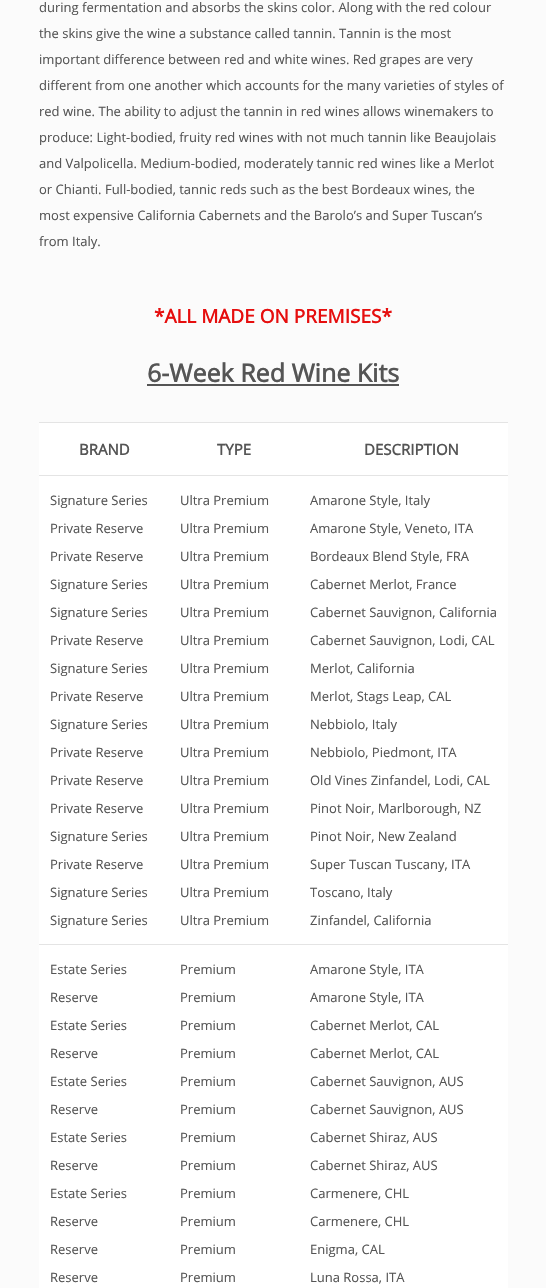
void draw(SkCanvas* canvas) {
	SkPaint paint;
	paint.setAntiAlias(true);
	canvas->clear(0xfffbfbfb);
	SkFont f1(fontMgr->matchFamilyStyle("Open Sans", SkFontStyle::Normal()), 13);
	f1.setSubpixel(true);
	paint.setColor(0xff555555);
	canvas->drawString("during fermentation and absorbs the skins color. Along with the red colour", 39, 12, f1, paint);
	canvas->drawString("the skins give the wine a substance called tannin. Tannin is the most", 39, 38, f1, paint);
	canvas->drawString("important difference between red and white wines. Red grapes are very", 39, 64, f1, paint);
	canvas->drawString("different from one another which accounts for the many varieties of styles of", 39, 90, f1, paint);
	canvas->drawString("red wine. The ability to adjust the tannin in red wines allows winemakers to", 39, 116, f1, paint);
	canvas->drawString("produce: Light-bodied, fruity red wines with not much tannin like Beaujolais", 39, 142, f1, paint);
	canvas->drawString("and Valpolicella. Medium-bodied, moderately tannic red wines like a Merlot", 39, 168, f1, paint);
	canvas->drawString("or Chianti. Full-bodied, tannic reds such as the best Bordeaux wines, the", 39, 194, f1, paint);
	canvas->drawString("most expensive California Cabernets and the Barolo’s and Super Tuscan’s", 39, 220, f1, paint);
	canvas->drawString("from Italy.", 39, 246, f1, paint);
	SkFont f2(fontMgr->matchFamilyStyle("Open Sans", SkFontStyle::Bold()), 19);
	f2.setSubpixel(true);
	paint.setColor(0xffe60e0e);
	canvas->drawString("*ALL MADE ON PREMISES*", 154, 323, f2, paint);
	SkFont f3(fontMgr->matchFamilyStyle("Open Sans", SkFontStyle::Bold()), 25);
	f3.setSubpixel(true);
	paint.setColor(0xff555555);
	canvas->drawString("6-Week Red Wine Kits", 147, 382, f3, paint);
	canvas->drawRect(SkRect::MakeXYWH(147, 384, 252, 2), paint);
	paint.setColor(0xffe4e4e4);
	canvas->drawRect(SkRect::MakeXYWH(39, 422, 469, 1), paint);
	paint.setColor(0xffffffff);
	canvas->drawRect(SkRect::MakeXYWH(39, 423, 469, 52), paint);
	SkFont f4(fontMgr->matchFamilyStyle("Open Sans", SkFontStyle::Bold()), 15);
	f4.setSubpixel(true);
	paint.setColor(0xff555555);
	canvas->drawString("BRAND", 79, 455, f4, paint);
	canvas->drawString("TYPE", 217, 455, f4, paint);
	canvas->drawString("DESCRIPTION", 364, 455, f4, paint);
	paint.setColor(0xffe4e4e4);
	canvas->drawRect(SkRect::MakeXYWH(39, 475, 469, 1), paint);
	paint.setColor(0xffffffff);
	canvas->drawRect(SkRect::MakeXYWH(39, 476, 469, 468), paint);
	paint.setColor(0xff555555);
	canvas->drawString("Signature Series", 50, 505, f1, paint);
	canvas->drawString("Private Reserve", 50, 533, f1, paint);
	canvas->drawString("Private Reserve", 50, 561, f1, paint);
	canvas->drawString("Signature Series", 50, 589, f1, paint);
	canvas->drawString("Signature Series", 50, 617, f1, paint);
	canvas->drawString("Private Reserve", 50, 645, f1, paint);
	canvas->drawString("Signature Series", 50, 673, f1, paint);
	canvas->drawString("Private Reserve", 50, 701, f1, paint);
	canvas->drawString("Signature Series", 50, 729, f1, paint);
	canvas->drawString("Private Reserve", 50, 757, f1, paint);
	canvas->drawString("Private Reserve", 50, 785, f1, paint);
	canvas->drawString("Private Reserve", 50, 813, f1, paint);
	canvas->drawString("Signature Series", 50, 841, f1, paint);
	canvas->drawString("Private Reserve", 50, 869, f1, paint);
	canvas->drawString("Signature Series", 50, 897, f1, paint);
	canvas->drawString("Signature Series", 50, 925, f1, paint);
	canvas->drawString("Ultra Premium", 180, 505, f1, paint);
	canvas->drawString("Ultra Premium", 180, 533, f1, paint);
	canvas->drawString("Ultra Premium", 180, 561, f1, paint);
	canvas->drawString("Ultra Premium", 180, 589, f1, paint);
	canvas->drawString("Ultra Premium", 180, 617, f1, paint);
	canvas->drawString("Ultra Premium", 180, 645, f1, paint);
	canvas->drawString("Ultra Premium", 180, 673, f1, paint);
	canvas->drawString("Ultra Premium", 180, 701, f1, paint);
	canvas->drawString("Ultra Premium", 180, 729, f1, paint);
	canvas->drawString("Ultra Premium", 180, 757, f1, paint);
	canvas->drawString("Ultra Premium", 180, 785, f1, paint);
	canvas->drawString("Ultra Premium", 180, 813, f1, paint);
	canvas->drawString("Ultra Premium", 180, 841, f1, paint);
	canvas->drawString("Ultra Premium", 180, 869, f1, paint);
	canvas->drawString("Ultra Premium", 180, 897, f1, paint);
	canvas->drawString("Ultra Premium", 180, 925, f1, paint);
	canvas->drawString("Amarone Style, Italy", 310, 505, f1, paint);
	canvas->drawString("Amarone Style, Veneto, ITA", 310, 533, f1, paint);
	canvas->drawString("Bordeaux Blend Style, FRA", 310, 561, f1, paint);
	canvas->drawString("Cabernet Merlot, France", 310, 589, f1, paint);
	canvas->drawString("Cabernet Sauvignon, California", 310, 617, f1, paint);
	canvas->drawString("Cabernet Sauvignon, Lodi, CAL", 310, 645, f1, paint);
	canvas->drawString("Merlot, California", 310, 673, f1, paint);
	canvas->drawString("Merlot, Stags Leap, CAL", 310, 701, f1, paint);
	canvas->drawString("Nebbiolo, Italy", 310, 729, f1, paint);
	canvas->drawString("Nebbiolo, Piedmont, ITA", 310, 757, f1, paint);
	canvas->drawString("Old Vines Zinfandel, Lodi, CAL", 310, 785, f1, paint);
	canvas->drawString("Pinot Noir, Marlborough, NZ", 310, 813, f1, paint);
	canvas->drawString("Pinot Noir, New Zealand", 310, 841, f1, paint);
	canvas->drawString("Super Tuscan Tuscany, ITA", 310, 869, f1, paint);
	canvas->drawString("Toscano, Italy", 310, 897, f1, paint);
	canvas->drawString("Zinfandel, California", 310, 925, f1, paint);
	paint.setColor(0xffe4e4e4);
	canvas->drawRect(SkRect::MakeXYWH(39, 944, 469, 1), paint);
	paint.setColor(0xffffffff);
	canvas->drawRect(SkRect::MakeXYWH(39, 945, 469, 343), paint);
	paint.setColor(0xff555555);
	canvas->drawString("Estate Series", 50, 974, f1, paint);
	canvas->drawString("Reserve", 50, 1002, f1, paint);
	canvas->drawString("Estate Series", 50, 1030, f1, paint);
	canvas->drawString("Reserve", 50, 1058, f1, paint);
	canvas->drawString("Estate Series", 50, 1086, f1, paint);
	canvas->drawString("Reserve", 50, 1114, f1, paint);
	canvas->drawString("Estate Series", 50, 1142, f1, paint);
	canvas->drawString("Reserve", 50, 1170, f1, paint);
	canvas->drawString("Estate Series", 50, 1198, f1, paint);
	canvas->drawString("Reserve", 50, 1226, f1, paint);
	canvas->drawString("Reserve", 50, 1254, f1, paint);
	canvas->drawString("Reserve", 50, 1282, f1, paint);
	canvas->drawString("Premium", 180, 974, f1, paint);
	canvas->drawString("Premium", 180, 1002, f1, paint);
	canvas->drawString("Premium", 180, 1030, f1, paint);
	canvas->drawString("Premium", 180, 1058, f1, paint);
	canvas->drawString("Premium", 180, 1086, f1, paint);
	canvas->drawString("Premium", 180, 1114, f1, paint);
	canvas->drawString("Premium", 180, 1142, f1, paint);
	canvas->drawString("Premium", 180, 1170, f1, paint);
	canvas->drawString("Premium", 180, 1198, f1, paint);
	canvas->drawString("Premium", 180, 1226, f1, paint);
	canvas->drawString("Premium", 180, 1254, f1, paint);
	canvas->drawString("Premium", 180, 1282, f1, paint);
	canvas->drawString("Amarone Style, ITA", 310, 974, f1, paint);
	canvas->drawString("Amarone Style, ITA", 310, 1002, f1, paint);
	canvas->drawString("Cabernet Merlot, CAL", 310, 1030, f1, paint);
	canvas->drawString("Cabernet Merlot, CAL", 310, 1058, f1, paint);
	canvas->drawString("Cabernet Sauvignon, AUS", 310, 1086, f1, paint);
	canvas->drawString("Cabernet Sauvignon, AUS", 310, 1114, f1, paint);
	canvas->drawString("Cabernet Shiraz, AUS", 310, 1142, f1, paint);
	canvas->drawString("Cabernet Shiraz, AUS", 310, 1170, f1, paint);
	canvas->drawString("Carmenere, CHL", 310, 1198, f1, paint);
	canvas->drawString("Carmenere, CHL", 310, 1226, f1, paint);
	canvas->drawString("Enigma, CAL", 310, 1254, f1, paint);
	canvas->drawString("Luna Rossa, ITA", 310, 1282, f1, paint);
}
